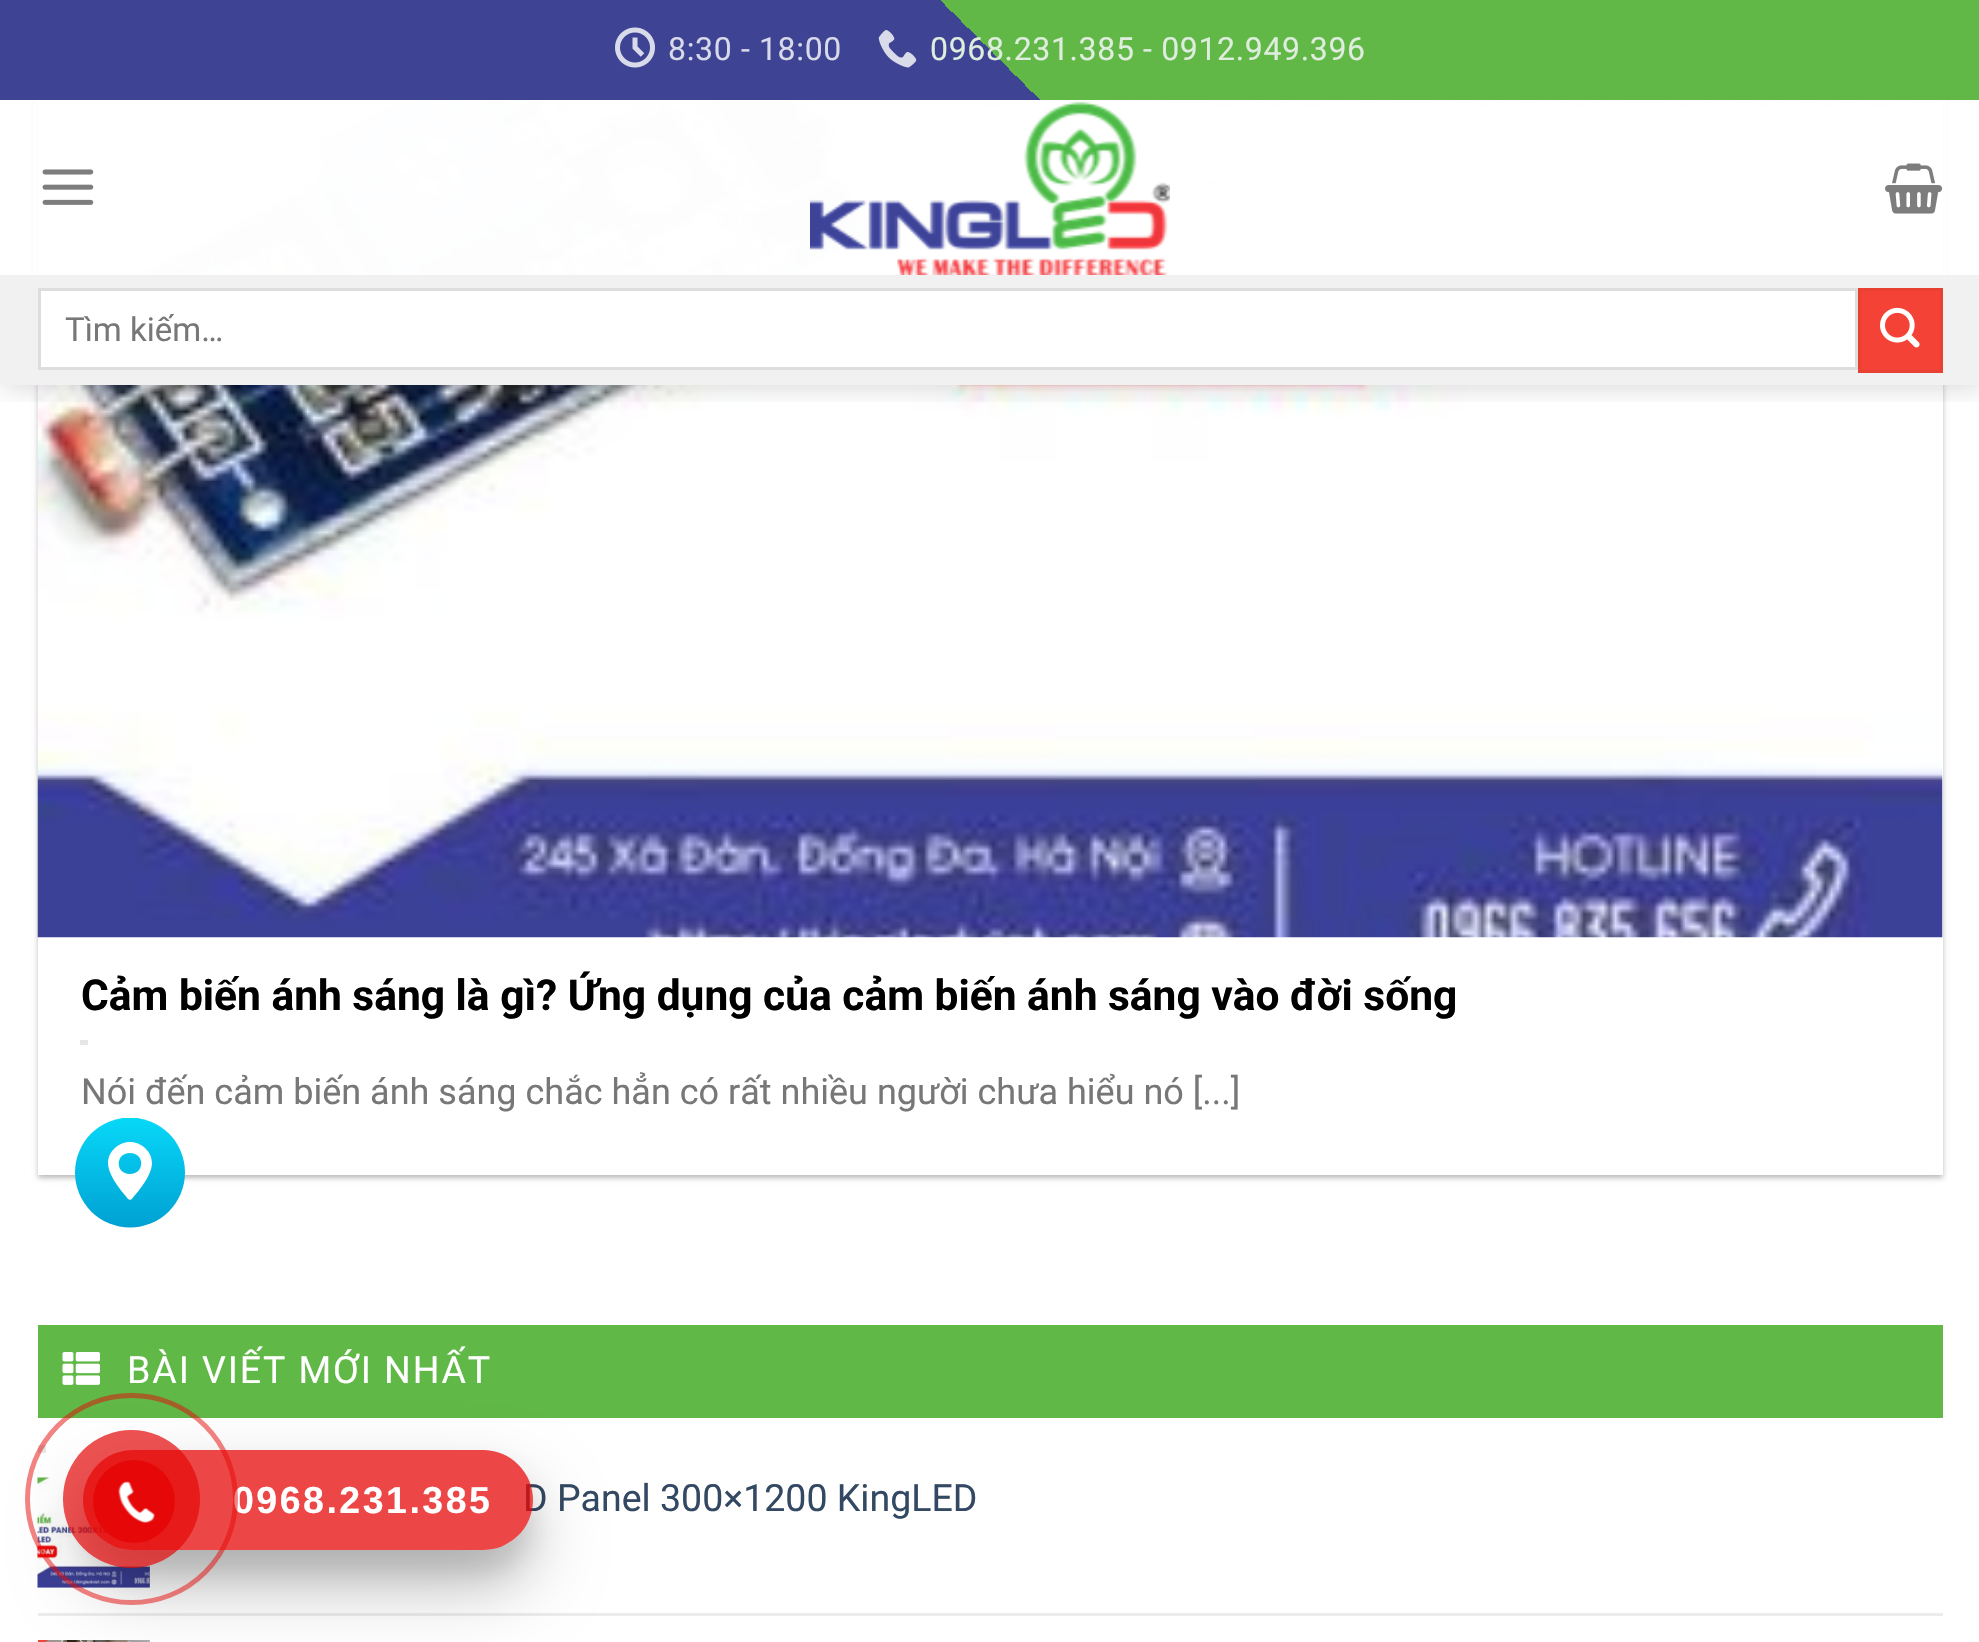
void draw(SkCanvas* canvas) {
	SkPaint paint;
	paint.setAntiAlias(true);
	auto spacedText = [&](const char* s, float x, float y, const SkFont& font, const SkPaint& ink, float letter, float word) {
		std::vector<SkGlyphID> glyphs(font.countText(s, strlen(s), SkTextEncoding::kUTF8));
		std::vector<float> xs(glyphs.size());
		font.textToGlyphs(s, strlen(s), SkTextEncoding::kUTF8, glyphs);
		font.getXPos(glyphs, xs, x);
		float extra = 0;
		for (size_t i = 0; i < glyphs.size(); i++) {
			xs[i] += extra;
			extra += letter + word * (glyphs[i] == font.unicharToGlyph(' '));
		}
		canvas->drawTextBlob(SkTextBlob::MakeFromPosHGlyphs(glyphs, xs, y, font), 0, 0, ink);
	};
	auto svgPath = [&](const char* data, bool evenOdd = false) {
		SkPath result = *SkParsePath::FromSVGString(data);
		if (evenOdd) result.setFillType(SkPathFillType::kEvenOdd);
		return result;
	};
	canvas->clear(0xffffffff);
	paint.setColor(0x3d000000);
	paint.setMaskFilter(SkMaskFilter::MakeBlur(kNormal_SkBlurStyle, 2.5));
	canvas->drawRect(SkRect::MakeXYWH(38, -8, 1905, 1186), paint);
	paint.setMaskFilter(nullptr);
	paint.setColor(0x1f000000);
	paint.setMaskFilter(SkMaskFilter::MakeBlur(kNormal_SkBlurStyle, 4));
	canvas->drawRect(SkRect::MakeXYWH(43, -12, 1895, 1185), paint);
	paint.setMaskFilter(nullptr);
	paint.setColor(0xffffffff);
	canvas->drawRect(SkRect::MakeXYWH(38, 100, 1905, 1075), paint);
	canvas->drawImageRect(SkImages::DeferredFromEncodedData(SkData::MakeFromFileName("img7.png")), SkRect::MakeXYWH(37, 100, 1906, 838), SkSamplingOptions());
	canvas->save();
	canvas->clipRect(SkRect::MakeXYWH(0, 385, 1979, 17));
	paint.setColor(0x26000000);
	paint.setMaskFilter(SkMaskFilter::MakeBlur(kNormal_SkBlurStyle, 12.5));
	canvas->drawRect(SkRect::MakeXYWH(3, 3, 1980, 385), paint);
	paint.setMaskFilter(nullptr);
	canvas->restore();
	paint.setColor(0xe6ffffff);
	canvas->drawRect(SkRect::MakeXYWH(34, 100, 1913, 175), paint);
	{
		const SkColor colors[] = {0xff3e4393, 0xff61b846};
		const float stops[] = {0.5, 0.5};
		const SkPoint ends[] = {{470, 570}, {1510, -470}};
		paint.setShader(SkGradientShader::MakeLinear(ends, colors, stops, 2, SkTileMode::kClamp));
		paint.setAlpha(255);
	}
	canvas->drawRect(SkRect::MakeXYWH(0, 0, 1979, 100), paint);
	canvas->drawImageRect(SkImages::DeferredFromEncodedData(SkData::MakeFromFileName("img1.png")), SkRect::MakeXYWH(615, 27, 40, 41), SkSamplingOptions());
	SkFont f1(fontMgr->matchFamilyStyle("Roboto", SkFontStyle::Normal()), 32);
	f1.setSubpixel(true);
	paint.setShader(nullptr);
	paint.setColor(0xffd8d9e9);
	spacedText("8:30 - 18:00", 668, 60, f1, paint, 0.65, 0);
	canvas->drawImageRect(SkImages::DeferredFromEncodedData(SkData::MakeFromFileName("img2.png")), SkRect::MakeXYWH(878, 30, 39, 38), SkSamplingOptions());
	paint.setColor(0xffdeeddd);
	spacedText("0968.231.385 - 0912.949.396", 930, 60, f1, paint, 0.65, 0);
	paint.setColor(0xe6ffffff);
	canvas->drawRect(SkRect::MakeXYWH(126, 100, 1780, 175), paint);
	canvas->drawImageRect(SkImages::DeferredFromEncodedData(SkData::MakeFromFileName("img3.png")), SkRect::MakeXYWH(42, 169, 52, 36), SkSamplingOptions());
	canvas->drawImageRect(SkImages::DeferredFromEncodedData(SkData::MakeFromFileName("img4.png")), SkRect::MakeXYWH(810, 101, 360, 174), SkSamplingOptions());
	canvas->drawImageRect(SkImages::DeferredFromEncodedData(SkData::MakeFromFileName("img5.png")), SkRect::MakeXYWH(1885, 163, 58, 51), SkSamplingOptions());
	paint.setColor(0xfff1f1f1);
	canvas->drawRect(SkRect::MakeXYWH(0, 275, 1979, 110), paint);
	paint.setColor(0xffffffff);
	canvas->drawRect(SkRect::MakeXYWH(39.5, 289.5, 1817, 79), paint);
	paint.setStroke(true);
	paint.setStrokeWidth(3);
	paint.setColor(0xffdddddd);
	canvas->drawRect(SkRect::MakeXYWH(39.5, 289.5, 1817, 79), paint);
	SkFont f2(fontMgr->matchFamilyStyle("Roboto", SkFontStyle::Normal()), 33);
	f2.setSubpixel(true);
	paint.setStroke(false);
	paint.setColor(0xff777777);
	canvas->drawString("Tìm kiếm…", 65, 341, f2, paint);
	paint.setColor(0xfff44336);
	canvas->drawRect(SkRect::MakeXYWH(1859.5, 289.5, 82, 82), paint);
	paint.setStroke(true);
	paint.setColor(0xffe84033);
	canvas->drawRect(SkRect::MakeXYWH(1859.5, 289.5, 82, 82), paint);
	canvas->drawImageRect(SkImages::DeferredFromEncodedData(SkData::MakeFromFileName("img6.png")), SkRect::MakeXYWH(1880, 307, 40, 41), SkSamplingOptions());
	SkFont f3(fontMgr->matchFamilyStyle("Roboto", SkFontStyle::Bold()), 42.5);
	f3.setSubpixel(true);
	paint.setStroke(false);
	paint.setColor(0xff000000);
	canvas->drawString("Cảm biến ánh sáng là gì? Ứng dụng của cảm biến ánh sáng vào đời sống", 81, 1010, f3, paint);
	paint.setColor(0xffe6e6e6);
	canvas->drawRect(SkRect::MakeXYWH(80, 1040, 8, 5), paint);
	SkFont f4(fontMgr->matchFamilyStyle("Roboto", SkFontStyle::Normal()), 36);
	f4.setSubpixel(true);
	paint.setColor(0xff777777);
	canvas->drawString("Nói đến cảm biến ánh sáng chắc hẳn có rất nhiều người chưa hiểu nó [...]", 81, 1104, f4, paint);
	paint.setColor(0xff60b846);
	canvas->drawRect(SkRect::MakeXYWH(38, 1325, 1905, 93), paint);
	canvas->drawImageRect(SkImages::DeferredFromEncodedData(SkData::MakeFromFileName("img8.png")), SkRect::MakeXYWH(62, 1352, 38, 33), SkSamplingOptions());
	SkFont f5(fontMgr->matchFamilyStyle("Roboto", SkFontStyle::Normal()), 37.5);
	f5.setSubpixel(true);
	paint.setColor(0xffffffff);
	spacedText("BÀI VIẾT MỚI NHẤT", 127, 1383, f5, paint, 1.9, 0);
	paint.setColor(0xffe6e6e6);
	canvas->drawRect(SkRect::MakeXYWH(38, 1445, 8, 8), paint);
	canvas->drawImageRect(SkImages::DeferredFromEncodedData(SkData::MakeFromFileName("img9.png")), SkRect::MakeXYWH(37, 1477, 113, 111), SkSamplingOptions());
	paint.setColor(0xff334862);
	canvas->drawString("D Panel 300×1200 KingLED", 523, 1511, f5, paint);
	paint.setColor(0xffececec);
	canvas->drawRect(SkRect::MakeXYWH(38, 1613, 1905, 3), paint);
	canvas->drawImageRect(SkImages::DeferredFromEncodedData(SkData::MakeFromFileName("img10.png")), SkRect::MakeXYWH(38, 1640, 112, 2), SkSamplingOptions());
	canvas->save();
	canvas->clipRect(SkRect::MakeXYWH(75, 1118, 110, 110));
	{
		const SkColor colors[] = {0xff07d8f8, 0xff00a0d2};
		const float stops[] = {0, 1};
		const SkPoint ends[] = {{130, 1118}, {130, 1228}};
		paint.setShader(SkGradientShader::MakeLinear(ends, colors, stops, 2, SkTileMode::kClamp));
		paint.setAlpha(255);
	}
	canvas->drawCircle(130, 1172.5, 55, paint);
	canvas->restore();
	paint.setShader(nullptr);
	paint.setColor(0xffffffff);
	canvas->drawPath(svgPath("M130 1142C118 1142 108 1152 108 1163C108 1178 128 1198 128 1199C129 1200 131 1200 132 1199C132 1198 152 1178 152 1163C152 1152 142 1142 130 1142ZM130 1174C115 1174 115 1153 130 1153C145 1153 145 1174 130 1174Z"), paint);
	canvas->save();
	canvas->clipPath(svgPath("M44 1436H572V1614H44ZM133 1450H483C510.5 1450 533 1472.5 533 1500C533 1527.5 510.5 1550 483 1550H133C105.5 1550 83 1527.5 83 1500C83 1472.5 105.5 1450 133 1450Z", true), true);
	paint.setColor(0x1a000000);
	paint.setMaskFilter(SkMaskFilter::MakeBlur(kNormal_SkBlurStyle, 12.5));
	canvas->drawRoundRect(SkRect::MakeXYWH(83, 1475, 450, 100), 50, 50, paint);
	paint.setMaskFilter(nullptr);
	canvas->restore();
	canvas->save();
	canvas->clipPath(svgPath("M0 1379H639V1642H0ZM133 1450H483C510.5 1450 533 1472.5 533 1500C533 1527.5 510.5 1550 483 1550H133C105.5 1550 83 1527.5 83 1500C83 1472.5 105.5 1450 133 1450Z", true), true);
	paint.setColor(0x40000000);
	paint.setMaskFilter(SkMaskFilter::MakeBlur(kNormal_SkBlurStyle, 35));
	canvas->drawRoundRect(SkRect::MakeXYWH(83, 1485, 450, 100), 50, 50, paint);
	paint.setMaskFilter(nullptr);
	canvas->restore();
	paint.setColor(0xbfe60808);
	canvas->drawRoundRect(SkRect::MakeXYWH(83, 1450, 450, 100), 50, 50, paint);
	SkFont f6(fontMgr->matchFamilyStyle("Liberation Sans", SkFontStyle::Bold()), 37.5);
	f6.setSubpixel(true);
	paint.setColor(0xffffffff);
	spacedText("0968.231.385", 233, 1513, f6, paint, 2.5, 0);
	paint.setStroke(true);
	paint.setStrokeWidth(5);
	paint.setColor(0x80e60808);
	canvas->drawRoundRect(SkRect::MakeXYWH(27.5, 1395.5, 208, 207), 103.5, 103.5, paint);
	paint.setStroke(false);
	paint.setColor(0xb3e60808);
	canvas->drawRoundRect(SkRect::MakeXYWH(63, 1430, 137, 138), 68.5, 68.5, paint);
	paint.setColor(0xffe60808);
	canvas->drawRoundRect(SkRect::MakeXYWH(93, 1460, 82, 83), 41, 41, paint);
	canvas->drawImageRect(SkImages::DeferredFromEncodedData(SkData::MakeFromFileName("img11.png")), SkRect::MakeXYWH(118, 1481, 37, 42), SkSamplingOptions());
}
